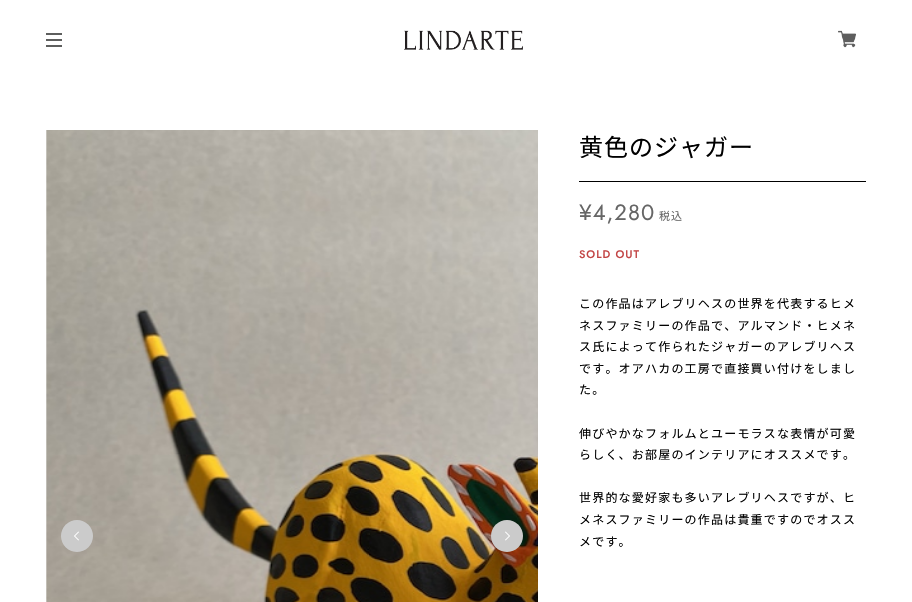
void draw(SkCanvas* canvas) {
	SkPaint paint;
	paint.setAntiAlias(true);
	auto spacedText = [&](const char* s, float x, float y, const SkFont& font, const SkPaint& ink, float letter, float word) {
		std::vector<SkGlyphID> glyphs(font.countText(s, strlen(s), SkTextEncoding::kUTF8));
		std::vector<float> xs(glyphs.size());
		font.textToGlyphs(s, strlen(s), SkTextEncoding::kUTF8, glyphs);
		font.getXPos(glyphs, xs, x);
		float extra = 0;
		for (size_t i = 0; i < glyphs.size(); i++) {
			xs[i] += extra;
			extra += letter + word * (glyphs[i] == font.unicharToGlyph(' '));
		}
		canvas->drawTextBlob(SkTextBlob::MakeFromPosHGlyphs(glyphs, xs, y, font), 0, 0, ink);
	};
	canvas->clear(0xffffffff);
	paint.setColor(0xff5d5e5d);
	canvas->drawRect(SkRect::MakeXYWH(46, 33, 16, 2), paint);
	canvas->drawRect(SkRect::MakeXYWH(46, 39, 16, 2), paint);
	canvas->drawRect(SkRect::MakeXYWH(46, 45, 16, 2), paint);
	canvas->drawImageRect(SkImages::DeferredFromEncodedData(SkData::MakeFromFileName("img1.png")), SkRect::MakeXYWH(404, 30, 119, 20), SkSamplingOptions());
	canvas->drawImageRect(SkImages::DeferredFromEncodedData(SkData::MakeFromFileName("img2.png")), SkRect::MakeXYWH(838, 30, 18, 18), SkSamplingOptions());
	canvas->drawImageRect(SkImages::DeferredFromEncodedData(SkData::MakeFromFileName("img3.png")), SkRect::MakeXYWH(46, 130, 492, 472), SkSamplingOptions());
	canvas->drawImageRect(SkImages::DeferredFromEncodedData(SkData::MakeFromFileName("img4.png")), SkRect::MakeXYWH(61, 520, 32, 32), SkSamplingOptions());
	canvas->drawImageRect(SkImages::DeferredFromEncodedData(SkData::MakeFromFileName("img5.png")), SkRect::MakeXYWH(491, 520, 32, 32), SkSamplingOptions());
	paint.setColor(0xff000000);
	canvas->drawRect(SkRect::MakeXYWH(579, 181, 287, 1), paint);
	SkFont f1(fontMgr->matchFamilyStyle("Noto Sans JP", SkFontStyle::Normal()), 24);
	f1.setSubpixel(true);
	spacedText("黄色のジャガー", 579, 156, f1, paint, 1, 0);
	SkFont f2(fontMgr->matchFamilyStyle("Jost", SkFontStyle::Normal()), 22);
	f2.setSubpixel(true);
	paint.setColor(0xff666666);
	spacedText("¥4,280", 579, 220, f2, paint, 1, 0);
	SkFont f3(fontMgr->matchFamilyStyle("Noto Sans JP", SkFontStyle::Normal()), 11);
	f3.setSubpixel(true);
	spacedText("税込", 659, 220, f3, paint, 1, 0);
	SkFont f4(fontMgr->matchFamilyStyle("Jost", SkFontStyle(500, SkFontStyle::kNormal_Width, SkFontStyle::kUpright_Slant)), 11);
	f4.setSubpixel(true);
	paint.setColor(0xffc24444);
	spacedText("SOLD OUT", 579, 258, f4, paint, 1, 0);
	SkFont f5(fontMgr->matchFamilyStyle("Noto Sans JP", SkFontStyle::Normal()), 12);
	f5.setSubpixel(true);
	paint.setColor(0xff000000);
	spacedText("この作品はアレブリヘスの世界を代表するヒメ", 579, 308, f5, paint, 1.2, 0);
	spacedText("ネスファミリーの作品で、アルマンド・ヒメネ", 579, 330, f5, paint, 1.2, 0);
	spacedText("ス氏によって作られたジャガーのアレブリヘス", 579, 351, f5, paint, 1.2, 0);
	spacedText("です。オアハカの工房で直接買い付けをしまし", 579, 373, f5, paint, 1.2, 0);
	spacedText("た。", 579, 394, f5, paint, 1.2, 0);
	spacedText("伸びやかなフォルムとユーモラスな表情が可愛", 579, 438, f5, paint, 1.2, 0);
	spacedText("らしく、お部屋のインテリアにオススメです。", 579, 459, f5, paint, 1.2, 0);
	spacedText("世界的な愛好家も多いアレブリヘスですが、ヒ", 579, 502, f5, paint, 1.2, 0);
	spacedText("メネスファミリーの作品は貴重ですのでオスス", 579, 524, f5, paint, 1.2, 0);
	spacedText("メです。", 579, 546, f5, paint, 1.2, 0);
}
